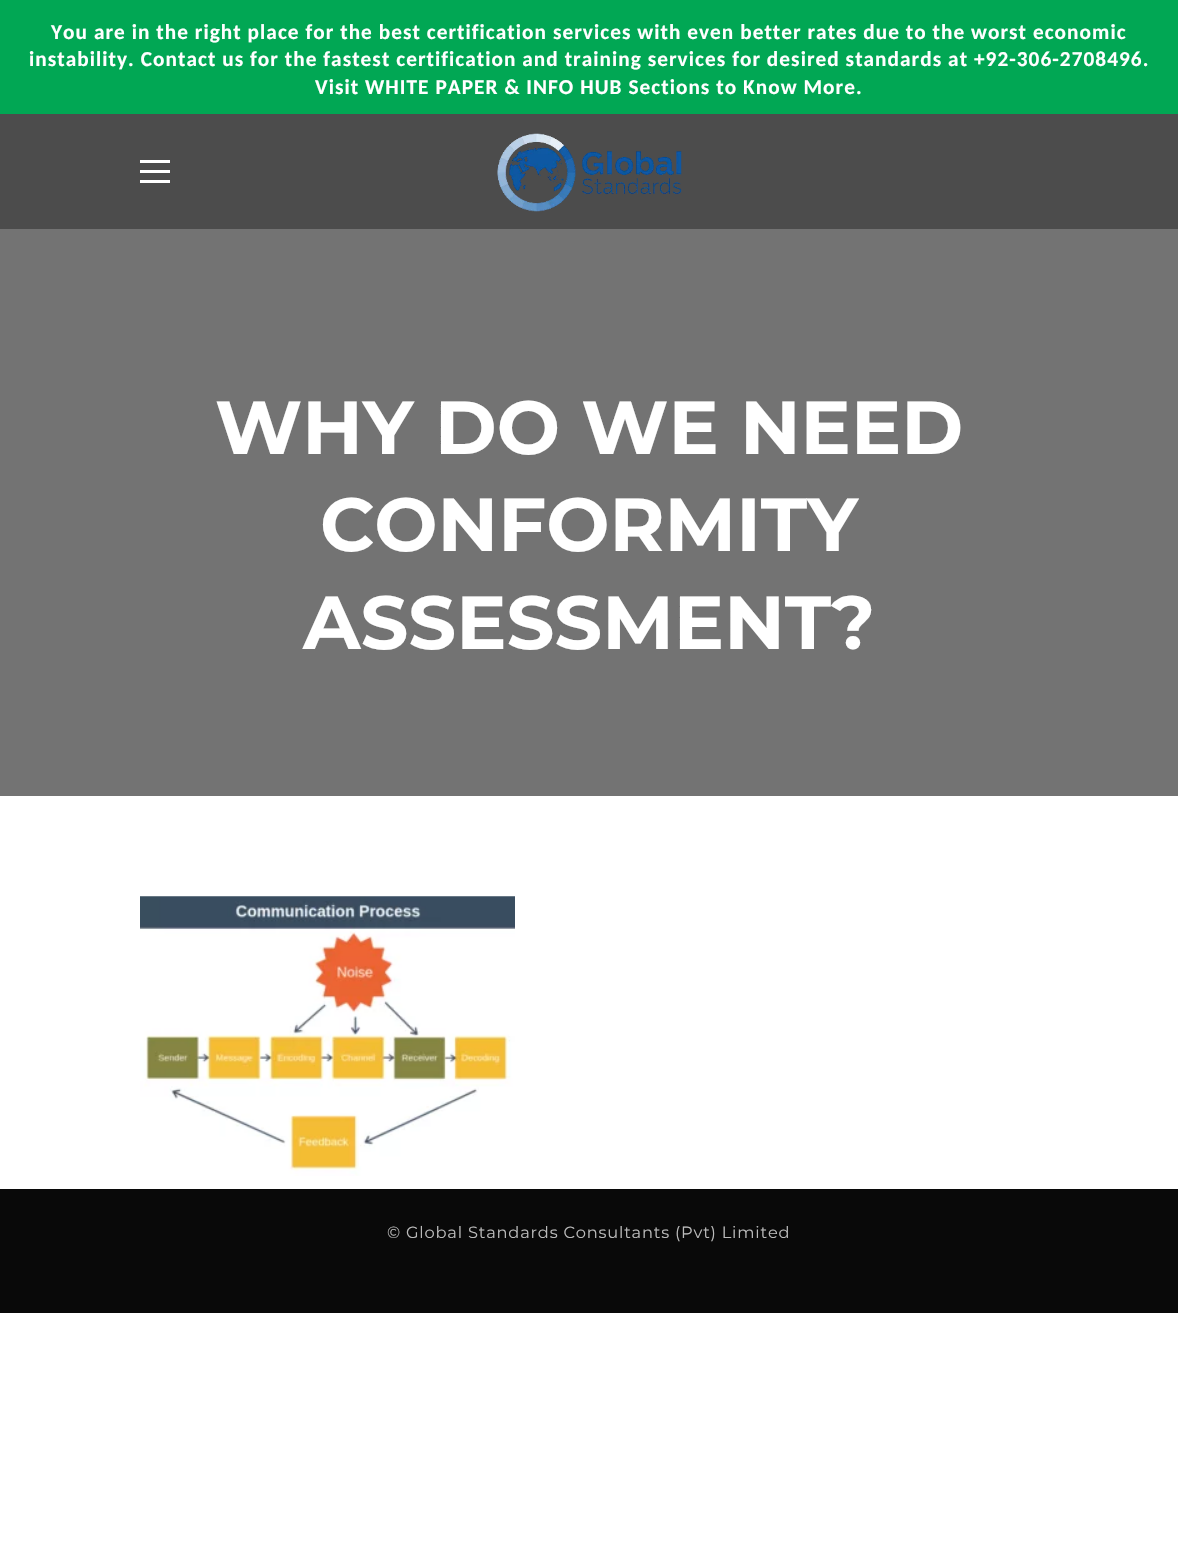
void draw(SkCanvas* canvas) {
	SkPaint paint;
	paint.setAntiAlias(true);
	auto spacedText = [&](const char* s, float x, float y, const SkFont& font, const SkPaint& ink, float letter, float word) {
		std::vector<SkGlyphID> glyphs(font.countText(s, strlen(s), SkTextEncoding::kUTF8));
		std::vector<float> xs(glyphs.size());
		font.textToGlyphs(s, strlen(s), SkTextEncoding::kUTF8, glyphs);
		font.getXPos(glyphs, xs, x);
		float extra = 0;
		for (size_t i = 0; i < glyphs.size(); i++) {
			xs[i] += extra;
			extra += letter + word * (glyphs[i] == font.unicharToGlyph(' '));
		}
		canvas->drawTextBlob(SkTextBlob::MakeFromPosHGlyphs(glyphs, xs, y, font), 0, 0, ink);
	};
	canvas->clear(0xffffffff);
	paint.setColor(0xff01a754);
	canvas->drawRect(SkRect::MakeXYWH(0, 0, 1178, 114), paint);
	SkFont f1(fontMgr->matchFamilyStyle("Carlito", SkFontStyle::Bold()), 21.25);
	f1.setSubpixel(true);
	paint.setColor(0xffffffff);
	spacedText("You are in the right place for the best certification services with even better rates due to the worst economic", 51, 39, f1, paint, 1.06, 0);
	spacedText("instability. Contact us for the fastest certification and training services for desired standards at +92-306-2708496.", 29, 66, f1, paint, 1.06, 0);
	spacedText("Visit WHITE PAPER & INFO HUB Sections to Know More.", 315, 94, f1, paint, 1.06, 0);
	paint.setColor(0xff4c4c4c);
	canvas->drawRect(SkRect::MakeXYWH(0, 114, 1178, 115), paint);
	paint.setColor(0xffffffff);
	canvas->drawRect(SkRect::MakeXYWH(140, 160, 30, 3), paint);
	canvas->drawRect(SkRect::MakeXYWH(140, 170, 30, 3), paint);
	canvas->drawRect(SkRect::MakeXYWH(140, 180, 30, 3), paint);
	canvas->drawImageRect(SkImages::DeferredFromEncodedData(SkData::MakeFromFileName("img1.png")), SkRect::MakeXYWH(497, 133, 185, 79), SkSamplingOptions());
	paint.setColor(0xff737373);
	canvas->drawRect(SkRect::MakeXYWH(0, 229, 1178, 567), paint);
	SkFont f2(fontMgr->matchFamilyStyle("Montserrat", SkFontStyle::Bold()), 75);
	f2.setSubpixel(true);
	paint.setColor(0xffffffff);
	canvas->drawString("WHY DO WE NEED", 215, 454, f2, paint);
	canvas->drawString("CONFORMITY", 320, 551, f2, paint);
	canvas->drawString("ASSESSMENT?", 303, 649, f2, paint);
	canvas->drawImageRect(SkImages::DeferredFromEncodedData(SkData::MakeFromFileName("img2.png")), SkRect::MakeXYWH(140, 896, 375, 280), SkSamplingOptions());
	paint.setColor(0xff090909);
	canvas->drawRect(SkRect::MakeXYWH(0, 1189, 1178, 124), paint);
	SkFont f3(fontMgr->matchFamilyStyle("Montserrat", SkFontStyle::Normal()), 16.25);
	f3.setSubpixel(true);
	paint.setColor(0xffbababa);
	spacedText("© Global Standards Consultants (Pvt) Limited", 387, 1238, f3, paint, 0.8, 0);
}
